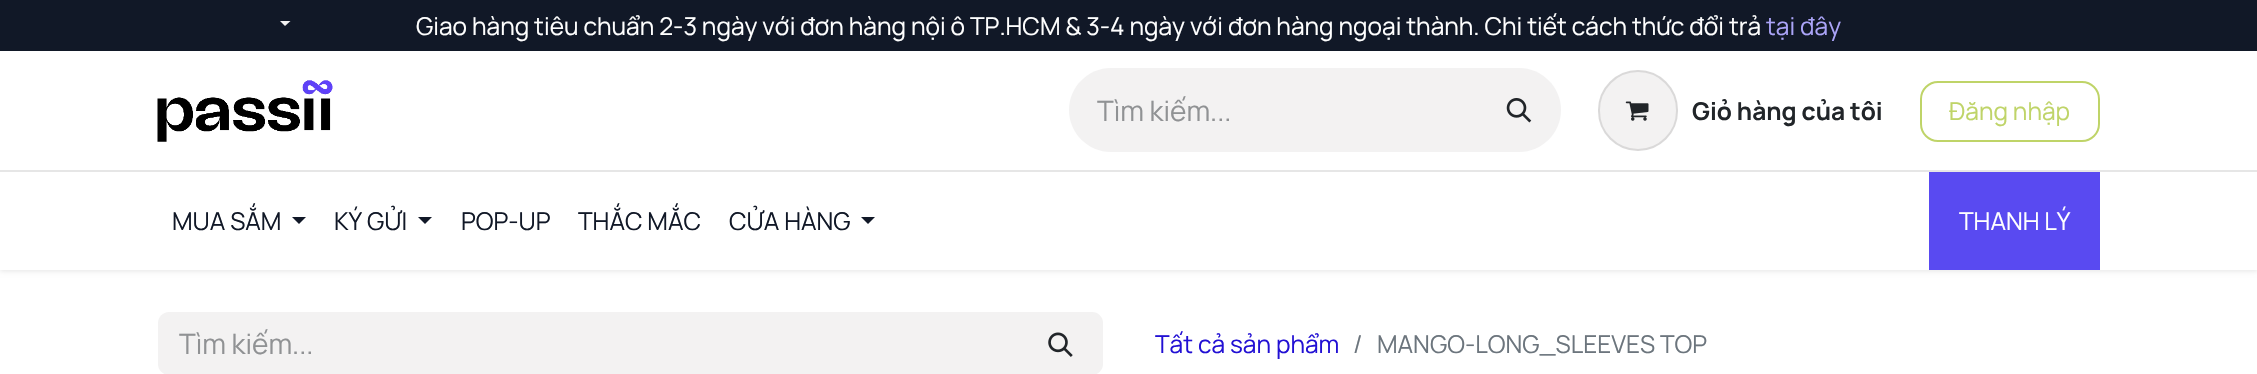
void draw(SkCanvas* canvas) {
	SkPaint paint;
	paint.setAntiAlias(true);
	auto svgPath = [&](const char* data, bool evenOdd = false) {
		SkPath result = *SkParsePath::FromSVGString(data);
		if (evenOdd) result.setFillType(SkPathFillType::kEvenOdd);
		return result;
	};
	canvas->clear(0xffffffff);
	paint.setColor(0x1a000000);
	paint.setMaskFilter(SkMaskFilter::MakeBlur(kNormal_SkBlurStyle, 2.5));
	canvas->drawRect(SkRect::MakeXYWH(0, 2, 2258, 269), paint);
	paint.setMaskFilter(nullptr);
	paint.setColor(0xffffffff);
	canvas->drawRect(SkRect::MakeXYWH(0, 51, 2257, 219), paint);
	paint.setColor(0xff111827);
	canvas->drawRect(SkRect::MakeXYWH(0, 0, 2257, 51), paint);
	paint.setColor(0xfff3f2f2);
	canvas->drawPath(svgPath("M280 21H290.5L285 26Z"), paint);
	SkFont f1(fontMgr->matchFamilyStyle("Manrope", SkFontStyle::Normal()), 24.5);
	f1.setSubpixel(true);
	paint.setColor(0xffffffff);
	canvas->drawString("Giao hàng tiêu chuẩn 2-3 ngày với đơn hàng nội ô TP.HCM & 3-4 ngày với đơn hàng ngoại thành. Chi tiết cách thức đổi trả", 416, 35, f1, paint);
	paint.setColor(0xffaba4f8);
	canvas->drawString("tại đây", 1766, 35, f1, paint);
	canvas->drawImageRect(SkImages::DeferredFromEncodedData(SkData::MakeFromFileName("img1.png")), SkRect::MakeXYWH(157, 80, 176, 62), SkSamplingOptions());
	paint.setColor(0xfff3f2f2);
	canvas->drawPath(svgPath("M1111 68H1479V152H1111C1088 152 1069 133 1069 110C1069 87 1088 68 1111 68Z"), paint);
	SkFont f2(fontMgr->matchFamilyStyle("Manrope", SkFontStyle::Normal()), 28);
	f2.setSubpixel(true);
	paint.setColor(0xff909294);
	canvas->drawString("Tìm kiếm...", 1097, 121, f2, paint);
	paint.setColor(0xfff3f2f2);
	canvas->drawPath(svgPath("M1477 68H1519C1542 68 1561 87 1561 110C1561 133 1542 152 1519 152H1477Z"), paint);
	canvas->drawImageRect(SkImages::DeferredFromEncodedData(SkData::MakeFromFileName("img2.png")), SkRect::MakeXYWH(1506, 98, 26, 25), SkSamplingOptions());
	canvas->drawRoundRect(SkRect::MakeXYWH(1598, 70, 80, 81), 40, 40, paint);
	paint.setStroke(true);
	paint.setStrokeWidth(2);
	paint.setColor(0x1a000000);
	canvas->drawRoundRect(SkRect::MakeXYWH(1599, 71, 78, 79), 39, 39, paint);
	canvas->drawImageRect(SkImages::DeferredFromEncodedData(SkData::MakeFromFileName("img3.png")), SkRect::MakeXYWH(1625, 101, 24, 20), SkSamplingOptions());
	SkFont f3(fontMgr->matchFamilyStyle("Manrope", SkFontStyle::Bold()), 24.5);
	f3.setSubpixel(true);
	paint.setStroke(false);
	paint.setColor(0xff212529);
	canvas->drawString("Giỏ hàng của tôi", 1692, 120, f3, paint);
	paint.setStroke(true);
	paint.setColor(0xffbfd468);
	canvas->drawRoundRect(SkRect::MakeXYWH(1921, 82, 178, 59), 17, 17, paint);
	paint.setStroke(false);
	canvas->drawString("Đăng nhập", 1949, 120, f1, paint);
	paint.setColor(0xffe6e6e6);
	canvas->drawRect(SkRect::MakeXYWH(0, 170, 2257, 2), paint);
	paint.setColor(0xff111827);
	canvas->drawString("MUA SẮM", 172, 230, f1, paint);
	canvas->drawPath(svgPath("M292 217H306L299 224Z"), paint);
	canvas->drawString("KÝ GỬI", 334, 230, f1, paint);
	canvas->drawPath(svgPath("M418 217H432L425 224Z"), paint);
	canvas->drawString("POP-UP", 461, 230, f1, paint);
	canvas->drawString("THẮC MẮC", 578, 230, f1, paint);
	canvas->drawString("CỬA HÀNG", 729, 230, f1, paint);
	canvas->drawPath(svgPath("M861 217H875L868 224Z"), paint);
	paint.setColor(0xff594af1);
	canvas->drawRect(SkRect::MakeXYWH(1929, 172, 171, 98), paint);
	paint.setColor(0xffffffff);
	canvas->drawString("THANH LÝ", 1959, 230, f1, paint);
	paint.setColor(0xfff3f2f2);
	canvas->drawPath(svgPath("M169 312H1020V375H169C163 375 158 370 158 364V323C158 317 163 312 169 312Z"), paint);
	paint.setColor(0xff909294);
	canvas->drawString("Tìm kiếm...", 179, 354, f2, paint);
	paint.setColor(0xfff3f2f2);
	canvas->drawPath(svgPath("M1020 313H1092C1097.5 313 1102 317.5 1102 323V364C1102 369.5 1097.5 374 1092 374H1020Z"), paint);
	paint.setStroke(true);
	canvas->drawPath(svgPath("M1020 313H1092C1097.5 313 1102 317.5 1102 323V364C1102 369.5 1097.5 374 1092 374H1020Z"), paint);
	canvas->drawImageRect(SkImages::DeferredFromEncodedData(SkData::MakeFromFileName("img4.png")), SkRect::MakeXYWH(1048, 332, 25, 25), SkSamplingOptions());
	paint.setStroke(false);
	paint.setColor(0xff2210d4);
	canvas->drawString("Tất cả sản phẩm", 1155, 353, f1, paint);
	paint.setColor(0xff6c757d);
	canvas->drawString("/", 1353, 353, f1, paint);
	canvas->drawString("MANGO-LONG_SLEEVES TOP", 1377, 353, f1, paint);
}
